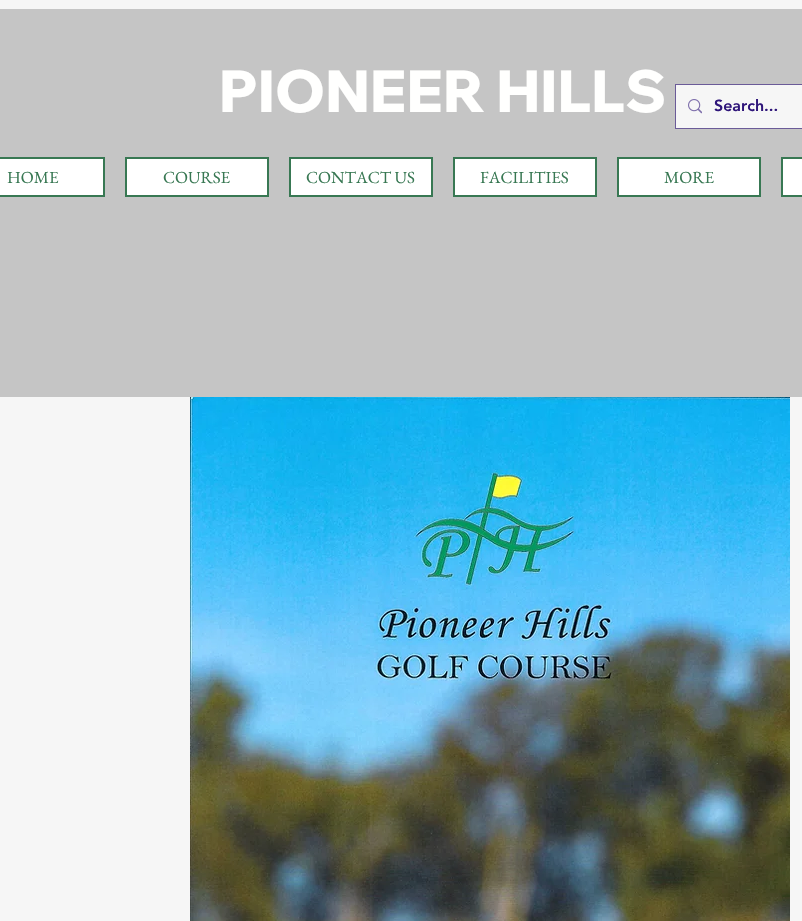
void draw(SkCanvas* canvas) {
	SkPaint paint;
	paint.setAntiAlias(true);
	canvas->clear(0xfff6f6f6);
	paint.setColor(0xffc5c5c5);
	canvas->drawRect(SkRect::MakeXYWH(0, 9, 802, 388), paint);
	canvas->drawImageRect(SkImages::DeferredFromEncodedData(SkData::MakeFromFileName("img1.png")), SkRect::MakeXYWH(190, 397, 600, 524), SkSamplingOptions());
	SkFont f1(fontMgr->matchFamilyStyle("Wix Madefor Display", SkFontStyle(800, SkFontStyle::kNormal_Width, SkFontStyle::kUpright_Slant)), 58);
	f1.setSubpixel(true);
	paint.setColor(0xfffffffe);
	canvas->drawString("PIONEER HILLS", 219, 112, f1, paint);
	paint.setStroke(true);
	paint.setStrokeWidth(1);
	paint.setColor(0xff6b5b98);
	canvas->drawRect(SkRect::MakeXYWH(675.5, 84.5, 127, 44), paint);
	paint.setStroke(false);
	paint.setColor(0xfff6f6f6);
	canvas->drawRect(SkRect::MakeXYWH(676, 85, 126, 43), paint);
	canvas->drawImageRect(SkImages::DeferredFromEncodedData(SkData::MakeFromFileName("img2.png")), SkRect::MakeXYWH(688, 99, 14, 15), SkSamplingOptions());
	SkFont f2(fontMgr->matchFamilyStyle("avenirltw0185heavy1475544", SkFontStyle(900, SkFontStyle::kNormal_Width, SkFontStyle::kUpright_Slant)), 16);
	f2.setSubpixel(true);
	paint.setColor(0xff2f157a);
	canvas->drawString("Search...", 714, 111, f2, paint);
	paint.setColor(0xffffffff);
	canvas->drawRect(SkRect::MakeXYWH(-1, 158, 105, 38), paint);
	paint.setStroke(true);
	paint.setStrokeWidth(2);
	paint.setColor(0xff387853);
	canvas->drawRect(SkRect::MakeXYWH(-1, 158, 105, 38), paint);
	SkFont f3(fontMgr->matchFamilyStyle("EB Garamond", SkFontStyle::Normal()), 17);
	f3.setSubpixel(true);
	paint.setStroke(false);
	canvas->drawString("HOME", 7, 183, f3, paint);
	paint.setColor(0xffffffff);
	canvas->drawRect(SkRect::MakeXYWH(126, 158, 142, 38), paint);
	paint.setStroke(true);
	paint.setColor(0xff387853);
	canvas->drawRect(SkRect::MakeXYWH(126, 158, 142, 38), paint);
	paint.setStroke(false);
	canvas->drawString("COURSE", 163, 183, f3, paint);
	paint.setColor(0xffffffff);
	canvas->drawRect(SkRect::MakeXYWH(290, 158, 142, 38), paint);
	paint.setStroke(true);
	paint.setColor(0xff387853);
	canvas->drawRect(SkRect::MakeXYWH(290, 158, 142, 38), paint);
	paint.setStroke(false);
	canvas->drawString("CONTACT US", 306, 183, f3, paint);
	paint.setColor(0xffffffff);
	canvas->drawRect(SkRect::MakeXYWH(454, 158, 142, 38), paint);
	paint.setStroke(true);
	paint.setColor(0xff387853);
	canvas->drawRect(SkRect::MakeXYWH(454, 158, 142, 38), paint);
	paint.setStroke(false);
	canvas->drawString("FACILITIES", 480, 183, f3, paint);
	paint.setColor(0xffffffff);
	canvas->drawRect(SkRect::MakeXYWH(618, 158, 142, 38), paint);
	paint.setStroke(true);
	paint.setColor(0xff387853);
	canvas->drawRect(SkRect::MakeXYWH(618, 158, 142, 38), paint);
	paint.setStroke(false);
	canvas->drawString("MORE", 664, 183, f3, paint);
	paint.setColor(0xffffffff);
	canvas->drawRect(SkRect::MakeXYWH(782, 158, 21, 38), paint);
	paint.setStroke(true);
	paint.setColor(0xff387853);
	canvas->drawRect(SkRect::MakeXYWH(782, 158, 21, 38), paint);
}
